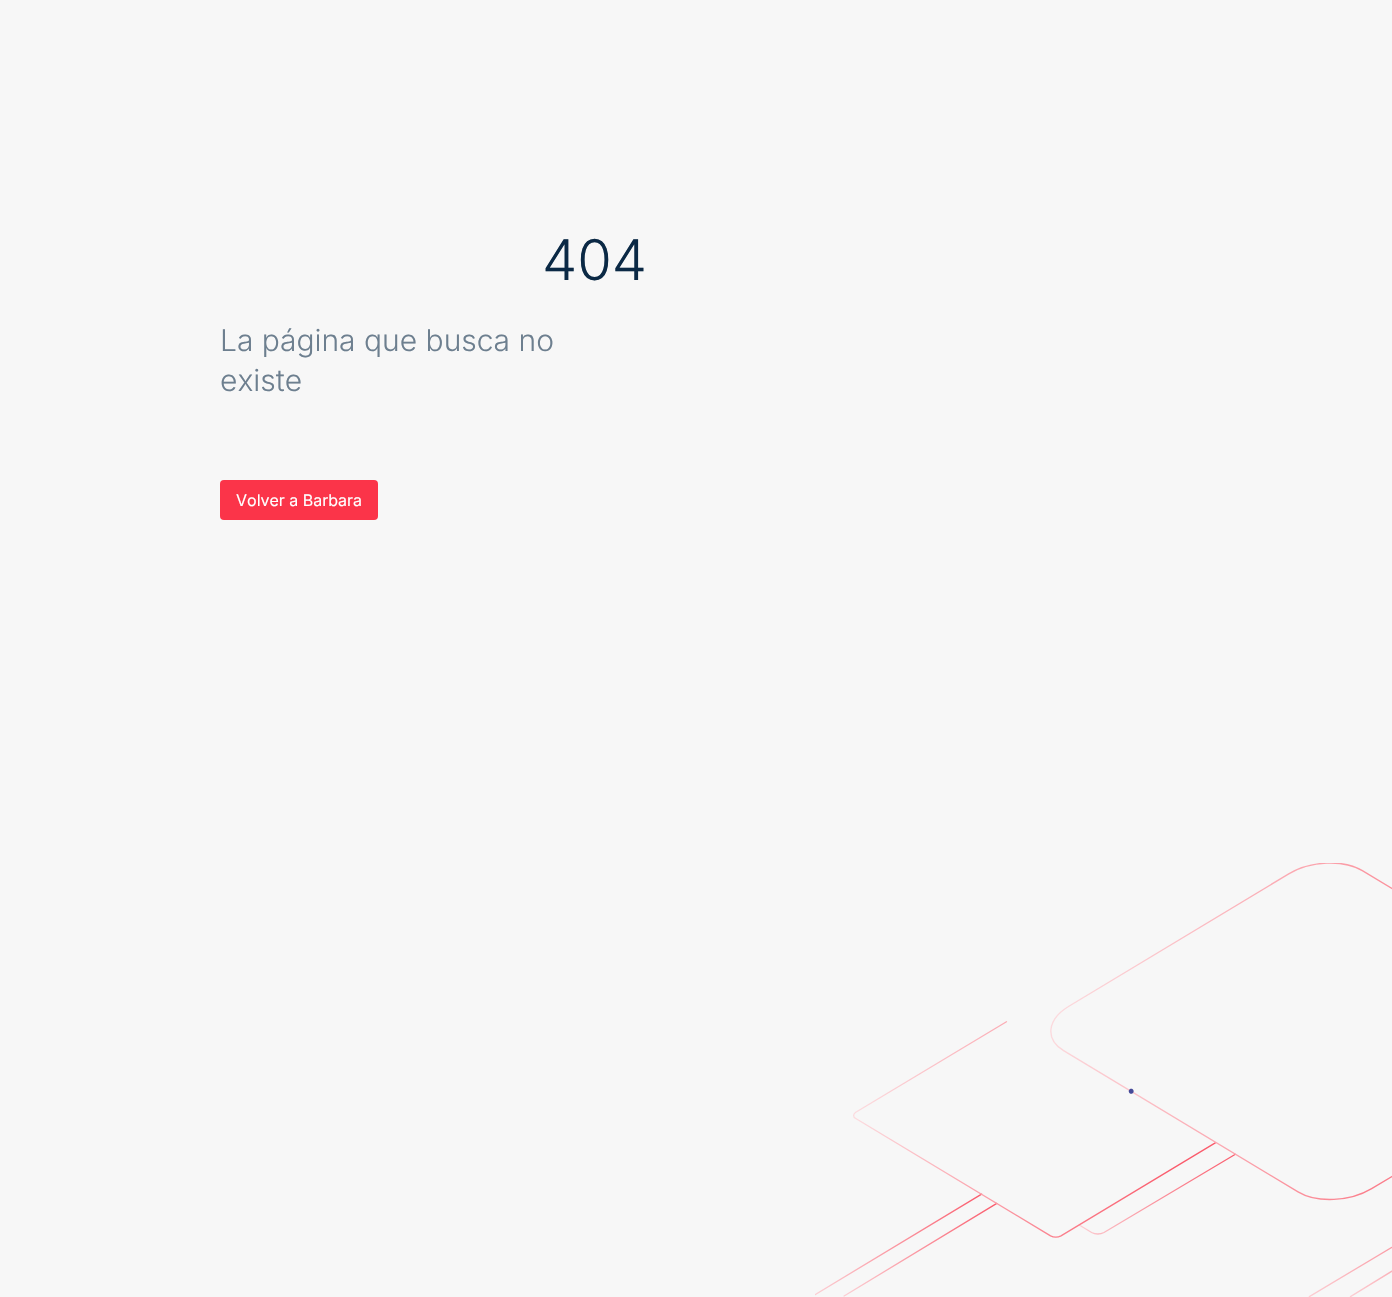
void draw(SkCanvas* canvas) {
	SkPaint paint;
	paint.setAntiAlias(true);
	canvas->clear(0xfff7f7f7);
	canvas->drawImageRect(SkImages::DeferredFromEncodedData(SkData::MakeFromFileName("img1.png")), SkRect::MakeXYWH(815, 863, 577, 434), SkSamplingOptions());
	SkFont f1(fontMgr->matchFamilyStyle("Inter", SkFontStyle(300, SkFontStyle::kNormal_Width, SkFontStyle::kUpright_Slant)), 56);
	f1.setSubpixel(true);
	paint.setColor(0xff0b2945);
	canvas->drawString("404", 542, 280, f1, paint);
	SkFont f2(fontMgr->matchFamilyStyle("Inter", SkFontStyle(300, SkFontStyle::kNormal_Width, SkFontStyle::kUpright_Slant)), 30);
	f2.setSubpixel(true);
	paint.setColor(0xff6d7f8f);
	canvas->drawString("La página que busca no", 220, 351, f2, paint);
	canvas->drawString("existe", 220, 391, f2, paint);
	paint.setColor(0xfffb3449);
	canvas->drawRoundRect(SkRect::MakeXYWH(220, 480, 158, 40), 4, 4, paint);
	SkFont f3(fontMgr->matchFamilyStyle("Inter", SkFontStyle::Normal()), 16);
	f3.setSubpixel(true);
	paint.setColor(0xffffffff);
	canvas->drawString("Volver a Barbara", 236, 506, f3, paint);
}
